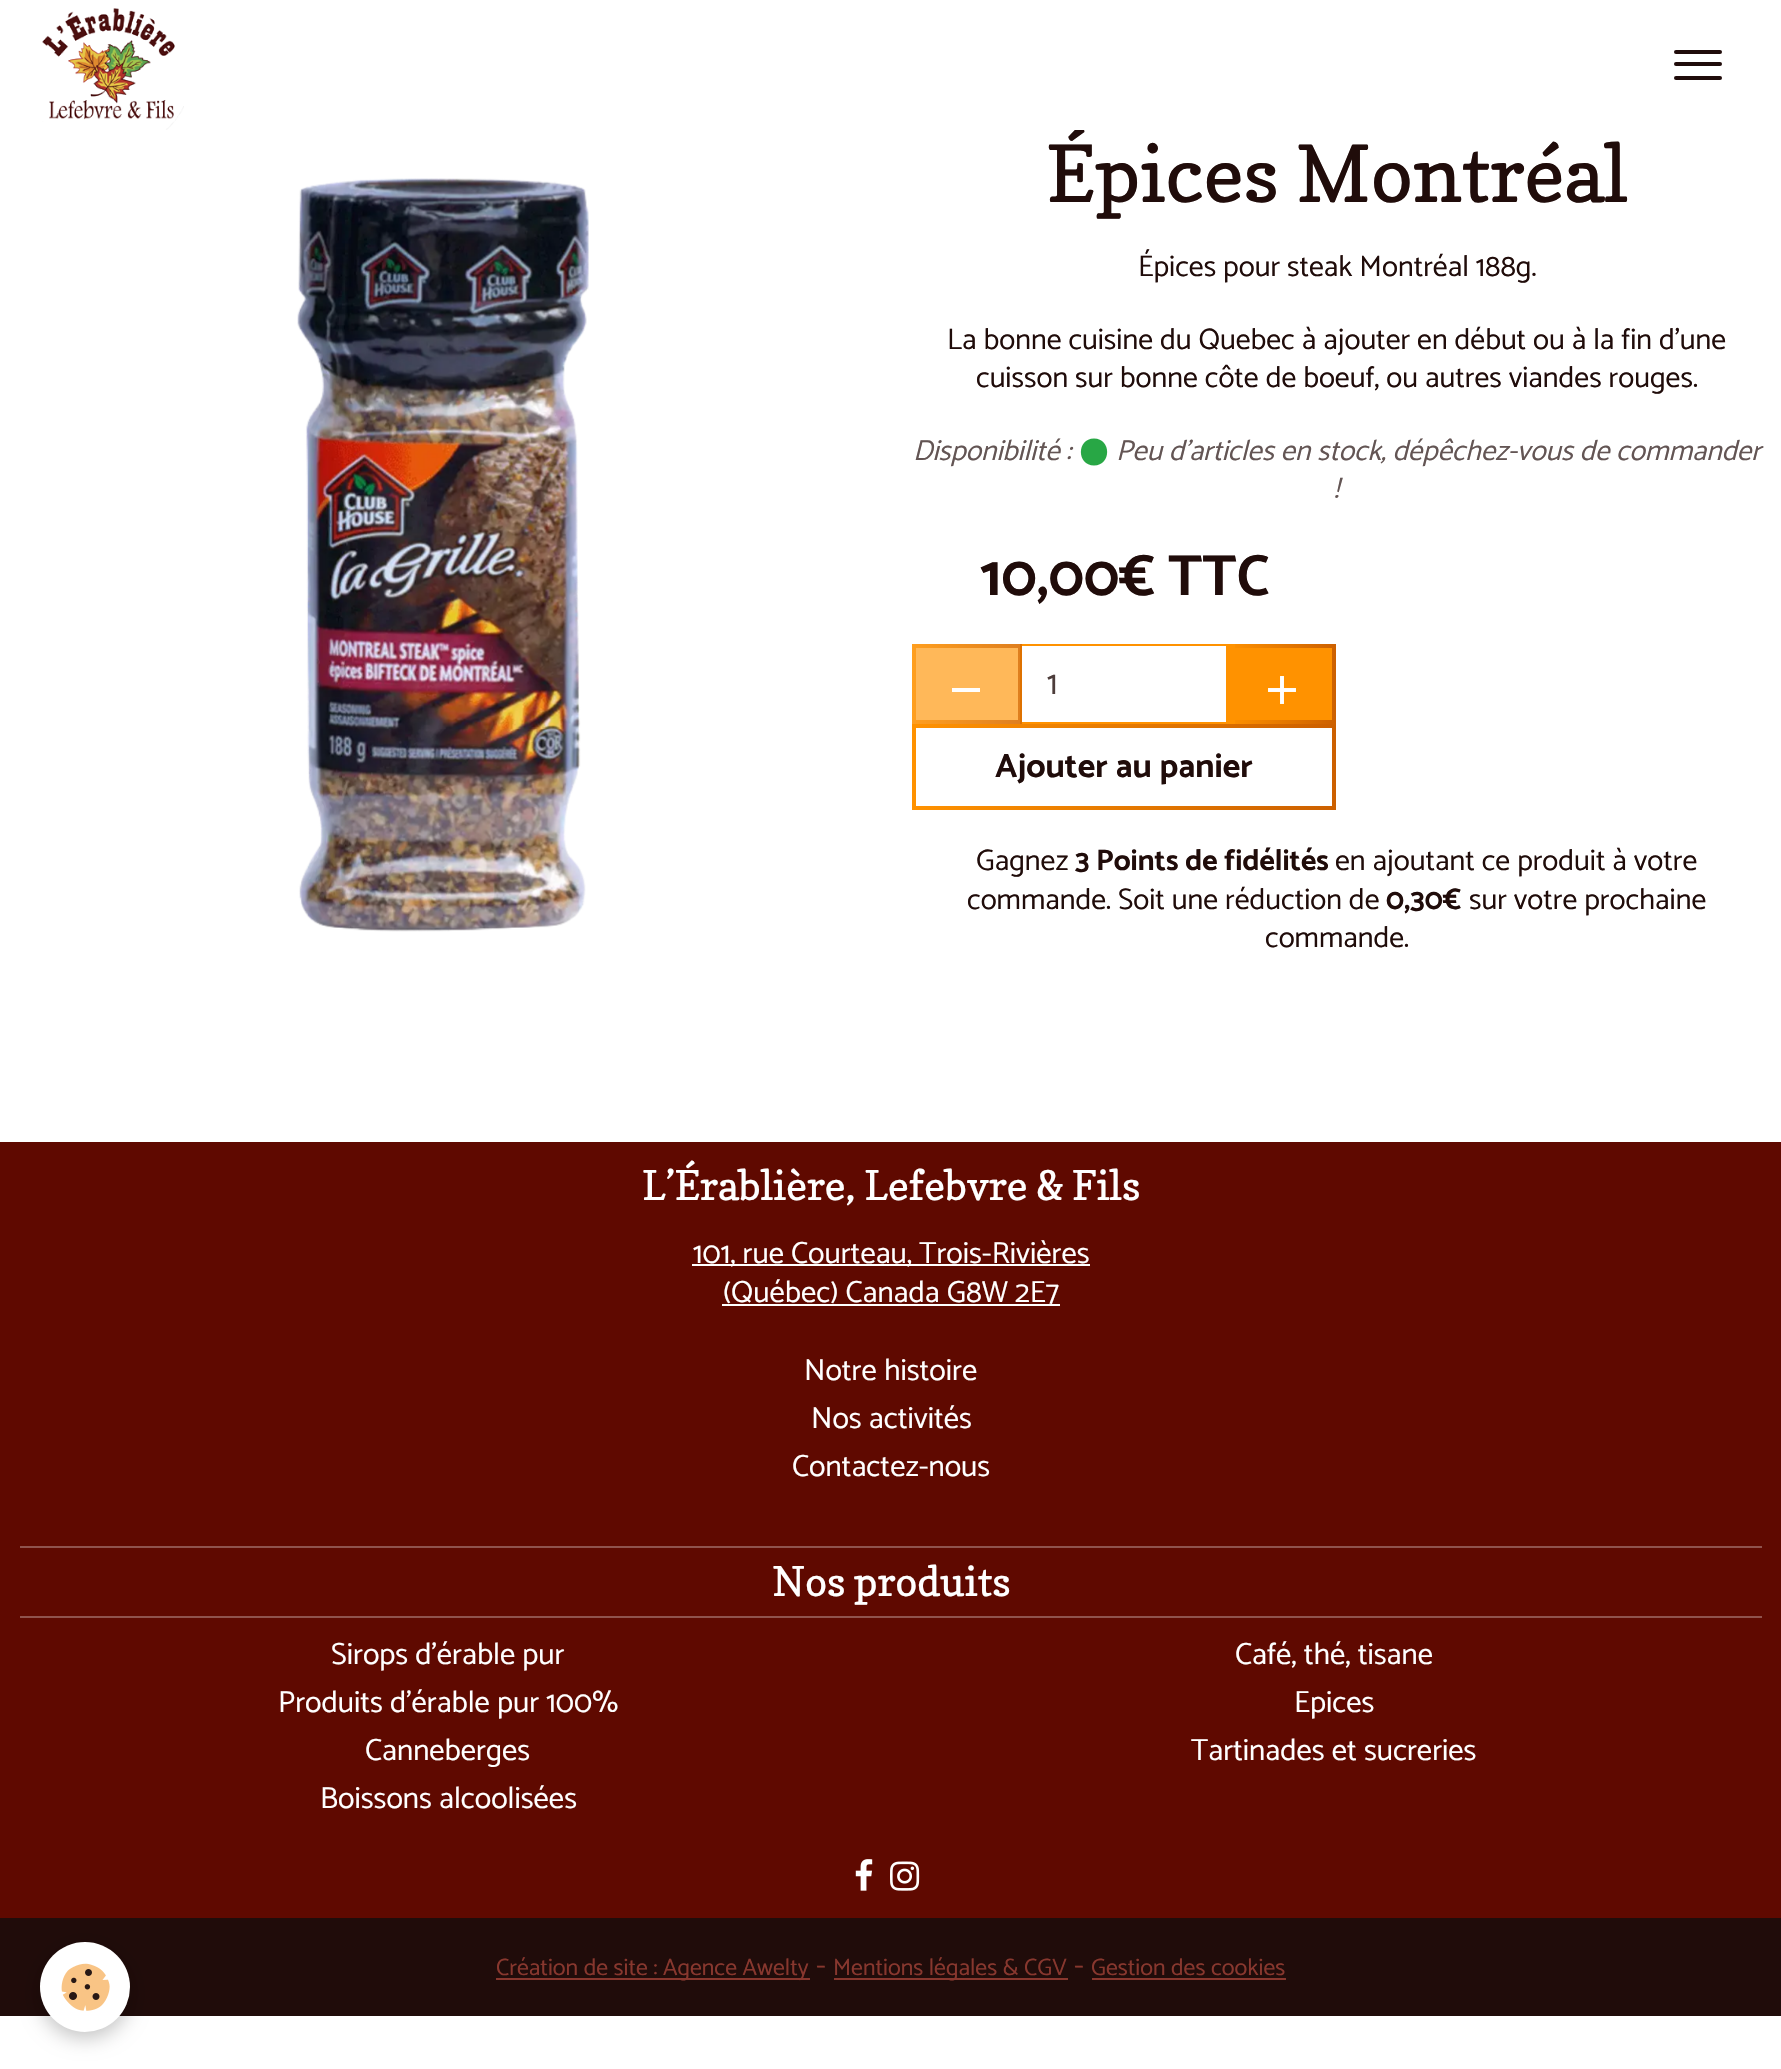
void draw(SkCanvas* canvas) {
	SkPaint paint;
	paint.setAntiAlias(true);
	auto svgPath = [&](const char* data, bool evenOdd = false) {
		SkPath result = *SkParsePath::FromSVGString(data);
		if (evenOdd) result.setFillType(SkPathFillType::kEvenOdd);
		return result;
	};
	canvas->clear(0xffffffff);
	SkFont f1(fontMgr->matchFamilyStyle("Copse", SkFontStyle::Normal()), 78.25);
	f1.setSubpixel(true);
	paint.setColor(0xff200c0a);
	canvas->drawString("Épices Montréal", 1046, 202, f1, paint);
	paint.setColor(0xffffffff);
	canvas->drawRect(SkRect::MakeXYWH(1074, 126, 10, 4), paint);
	canvas->drawImageRect(SkImages::DeferredFromEncodedData(SkData::MakeFromFileName("img1.png")), SkRect::MakeXYWH(42, 8, 142, 122), SkSamplingOptions());
	paint.setColor(0xff200c0a);
	canvas->drawRoundRect(SkRect::MakeXYWH(1674, 50, 48, 4), 2, 2, paint);
	canvas->drawRoundRect(SkRect::MakeXYWH(1674, 62, 48, 4), 2, 2, paint);
	canvas->drawRoundRect(SkRect::MakeXYWH(1674, 76, 48, 4), 2, 2, paint);
	canvas->drawImageRect(SkImages::DeferredFromEncodedData(SkData::MakeFromFileName("img2.png")), SkRect::MakeXYWH(297, 178, 292, 754), SkSamplingOptions());
	SkFont f2(fontMgr->matchFamilyStyle("Catamaran", SkFontStyle::Normal()), 29.75);
	f2.setSubpixel(true);
	canvas->drawString("Épices pour steak Montréal 188g.", 1138, 276, f2, paint);
	canvas->drawString("La bonne cuisine du Quebec à ajouter en début ou à la fin d'une", 947, 349, f2, paint);
	canvas->drawString("cuisson sur bonne côte de boeuf, ou autres viandes rouges.", 976, 387, f2, paint);
	SkFont f3(fontMgr->matchFamilyStyle("Catamaran", SkFontStyle::Italic()), 28.9);
	f3.setSubpixel(true);
	paint.setColor(0xff635554);
	canvas->drawString("Disponibilité :", 913, 460, f3, paint);
	paint.setColor(0xff28a745);
	canvas->drawPath(svgPath("M1094 438.5C1111.5 438.5 1111.5 465.5 1094 465.5C1076.5 465.5 1076.5 438.5 1094 438.5Z"), paint);
	paint.setColor(0xff635554);
	canvas->drawString("Peu d'articles en stock, dépêchez-vous de commander", 1116, 460, f3, paint);
	canvas->drawString("!", 1334, 498, f3, paint);
	SkFont f4(fontMgr->matchFamilyStyle("Catamaran", SkFontStyle::Bold()), 58);
	f4.setSubpixel(true);
	paint.setColor(0xff200c0a);
	canvas->drawString("10,00€ TTC", 980, 595, f4, paint);
	paint.setColor(0xa6ff9200);
	canvas->drawRect(SkRect::MakeXYWH(912, 644, 108, 80), paint);
	paint.setStroke(true);
	paint.setStrokeWidth(2);
	paint.setColor(0xffff9200);
	canvas->drawRect(SkRect::MakeXYWH(1021, 645, 206, 78), paint);
	canvas->drawImageRect(SkImages::DeferredFromEncodedData(SkData::MakeFromFileName("img3.png")), SkRect::MakeXYWH(912, 644, 110, 80), SkSamplingOptions());
	paint.setStroke(false);
	paint.setColor(0xffffffff);
	canvas->drawRect(SkRect::MakeXYWH(952, 688, 28, 4), paint);
	SkFont f5(fontMgr->matchFamilyStyle("Catamaran", SkFontStyle::Normal()), 34);
	f5.setSubpixel(true);
	paint.setColor(0xff4d3d3b);
	canvas->drawString("1", 1047, 694, f5, paint);
	paint.setColor(0xffff9200);
	canvas->drawRect(SkRect::MakeXYWH(1228, 644, 104, 80), paint);
	canvas->drawImageRect(SkImages::DeferredFromEncodedData(SkData::MakeFromFileName("img4.png")), SkRect::MakeXYWH(1235, 644, 101, 80), SkSamplingOptions());
	canvas->drawImageRect(SkImages::DeferredFromEncodedData(SkData::MakeFromFileName("img5.png")), SkRect::MakeXYWH(1268, 676, 28, 28), SkSamplingOptions());
	canvas->drawImageRect(SkImages::DeferredFromEncodedData(SkData::MakeFromFileName("img6.png")), SkRect::MakeXYWH(912, 724, 424, 86), SkSamplingOptions());
	SkFont f6(fontMgr->matchFamilyStyle("Catamaran", SkFontStyle::Bold()), 34);
	f6.setSubpixel(true);
	paint.setColor(0xff200c0a);
	canvas->drawString("Ajouter au panier", 995, 777, f6, paint);
	canvas->drawString("Gagnez", 976, 870, f2, paint);
	SkFont f7(fontMgr->matchFamilyStyle("Catamaran", SkFontStyle::Bold()), 29.75);
	f7.setSubpixel(true);
	canvas->drawString("3 Points de fidélités", 1075, 870, f7, paint);
	canvas->drawString("en ajoutant ce produit à votre", 1335, 870, f2, paint);
	canvas->drawString("commande. Soit une réduction de", 967, 909, f2, paint);
	canvas->drawString("0,30€", 1386, 909, f7, paint);
	canvas->drawString("sur votre prochaine", 1469, 909, f2, paint);
	canvas->drawString("commande.", 1265, 947, f2, paint);
	paint.setColor(0xff5f0900);
	canvas->drawRect(SkRect::MakeXYWH(0, 1142, 1781, 776), paint);
	paint.setColor(0xff200c0a);
	canvas->drawRect(SkRect::MakeXYWH(0, 1918, 1781, 98), paint);
	paint.setColor(0x3d000000);
	paint.setMaskFilter(SkMaskFilter::MakeBlur(kNormal_SkBlurStyle, 10));
	canvas->drawRoundRect(SkRect::MakeXYWH(40, 1948, 90, 90), 45, 45, paint);
	paint.setMaskFilter(nullptr);
	paint.setColor(0xffffffff);
	canvas->drawCircle(85, 1987, 45, paint);
	canvas->drawImageRect(SkImages::DeferredFromEncodedData(SkData::MakeFromFileName("img7.png")), SkRect::MakeXYWH(61, 1963, 49, 48), SkSamplingOptions());
	SkFont f8(fontMgr->matchFamilyStyle("Copse", SkFontStyle::Normal()), 40.75);
	f8.setSubpixel(true);
	canvas->drawString("L’Érablière, Lefebvre & Fils", 642, 1200, f8, paint);
	canvas->drawRect(SkRect::MakeXYWH(692, 1264, 398, 2), paint);
	SkFont f9(fontMgr->matchFamilyStyle("Catamaran", SkFontStyle::Normal()), 30.6);
	f9.setSubpixel(true);
	canvas->drawString("101, rue Courteau, Trois-Rivières", 693, 1263, f9, paint);
	canvas->drawRect(SkRect::MakeXYWH(722, 1304, 338, 2), paint);
	canvas->drawString("(Québec) Canada G8W 2E7", 723, 1302, f9, paint);
	canvas->drawString("Notre histoire", 804, 1380, f9, paint);
	canvas->drawString("Nos activités", 811, 1428, f9, paint);
	canvas->drawString("Contactez-nous", 792, 1476, f9, paint);
	paint.setColor(0xff8f534d);
	canvas->drawRect(SkRect::MakeXYWH(20, 1546, 1742, 2), paint);
	canvas->drawRect(SkRect::MakeXYWH(20, 1616, 1742, 2), paint);
	paint.setColor(0xffffffff);
	canvas->drawString("Nos produits", 772, 1596, f8, paint);
	canvas->drawString("Sirops d’érable pur", 331, 1664, f9, paint);
	canvas->drawString("Café, thé, tisane", 1235, 1664, f9, paint);
	canvas->drawString("Produits d’érable pur 100%", 278, 1712, f9, paint);
	canvas->drawString("Epices", 1294, 1712, f9, paint);
	canvas->drawString("Canneberges", 365, 1760, f9, paint);
	canvas->drawString("Tartinades et sucreries", 1191, 1760, f9, paint);
	canvas->drawString("Boissons alcoolisées", 320, 1808, f9, paint);
	canvas->drawImageRect(SkImages::DeferredFromEncodedData(SkData::MakeFromFileName("img8.png")), SkRect::MakeXYWH(855, 1859, 18, 32), SkSamplingOptions());
	canvas->drawImageRect(SkImages::DeferredFromEncodedData(SkData::MakeFromFileName("img9.png")), SkRect::MakeXYWH(890, 1861, 30, 30), SkSamplingOptions());
	paint.setColor(0xff88372e);
	canvas->drawRect(SkRect::MakeXYWH(496, 1978, 314, 2), paint);
	SkFont f10(fontMgr->matchFamilyStyle("Catamaran", SkFontStyle::Normal()), 23.75);
	f10.setSubpixel(true);
	canvas->drawString("Création de site : Agence Awelty", 496, 1975, f10, paint);
	canvas->drawString("-", 816, 1975, f9, paint);
	canvas->drawRect(SkRect::MakeXYWH(834, 1978, 234, 2), paint);
	canvas->drawString("Mentions légales & CGV", 833, 1975, f10, paint);
	canvas->drawString("-", 1074, 1975, f9, paint);
	canvas->drawString("Gestion des cookies", 1091, 1975, f10, paint);
	canvas->drawRect(SkRect::MakeXYWH(1092, 1978, 194, 2), paint);
}
